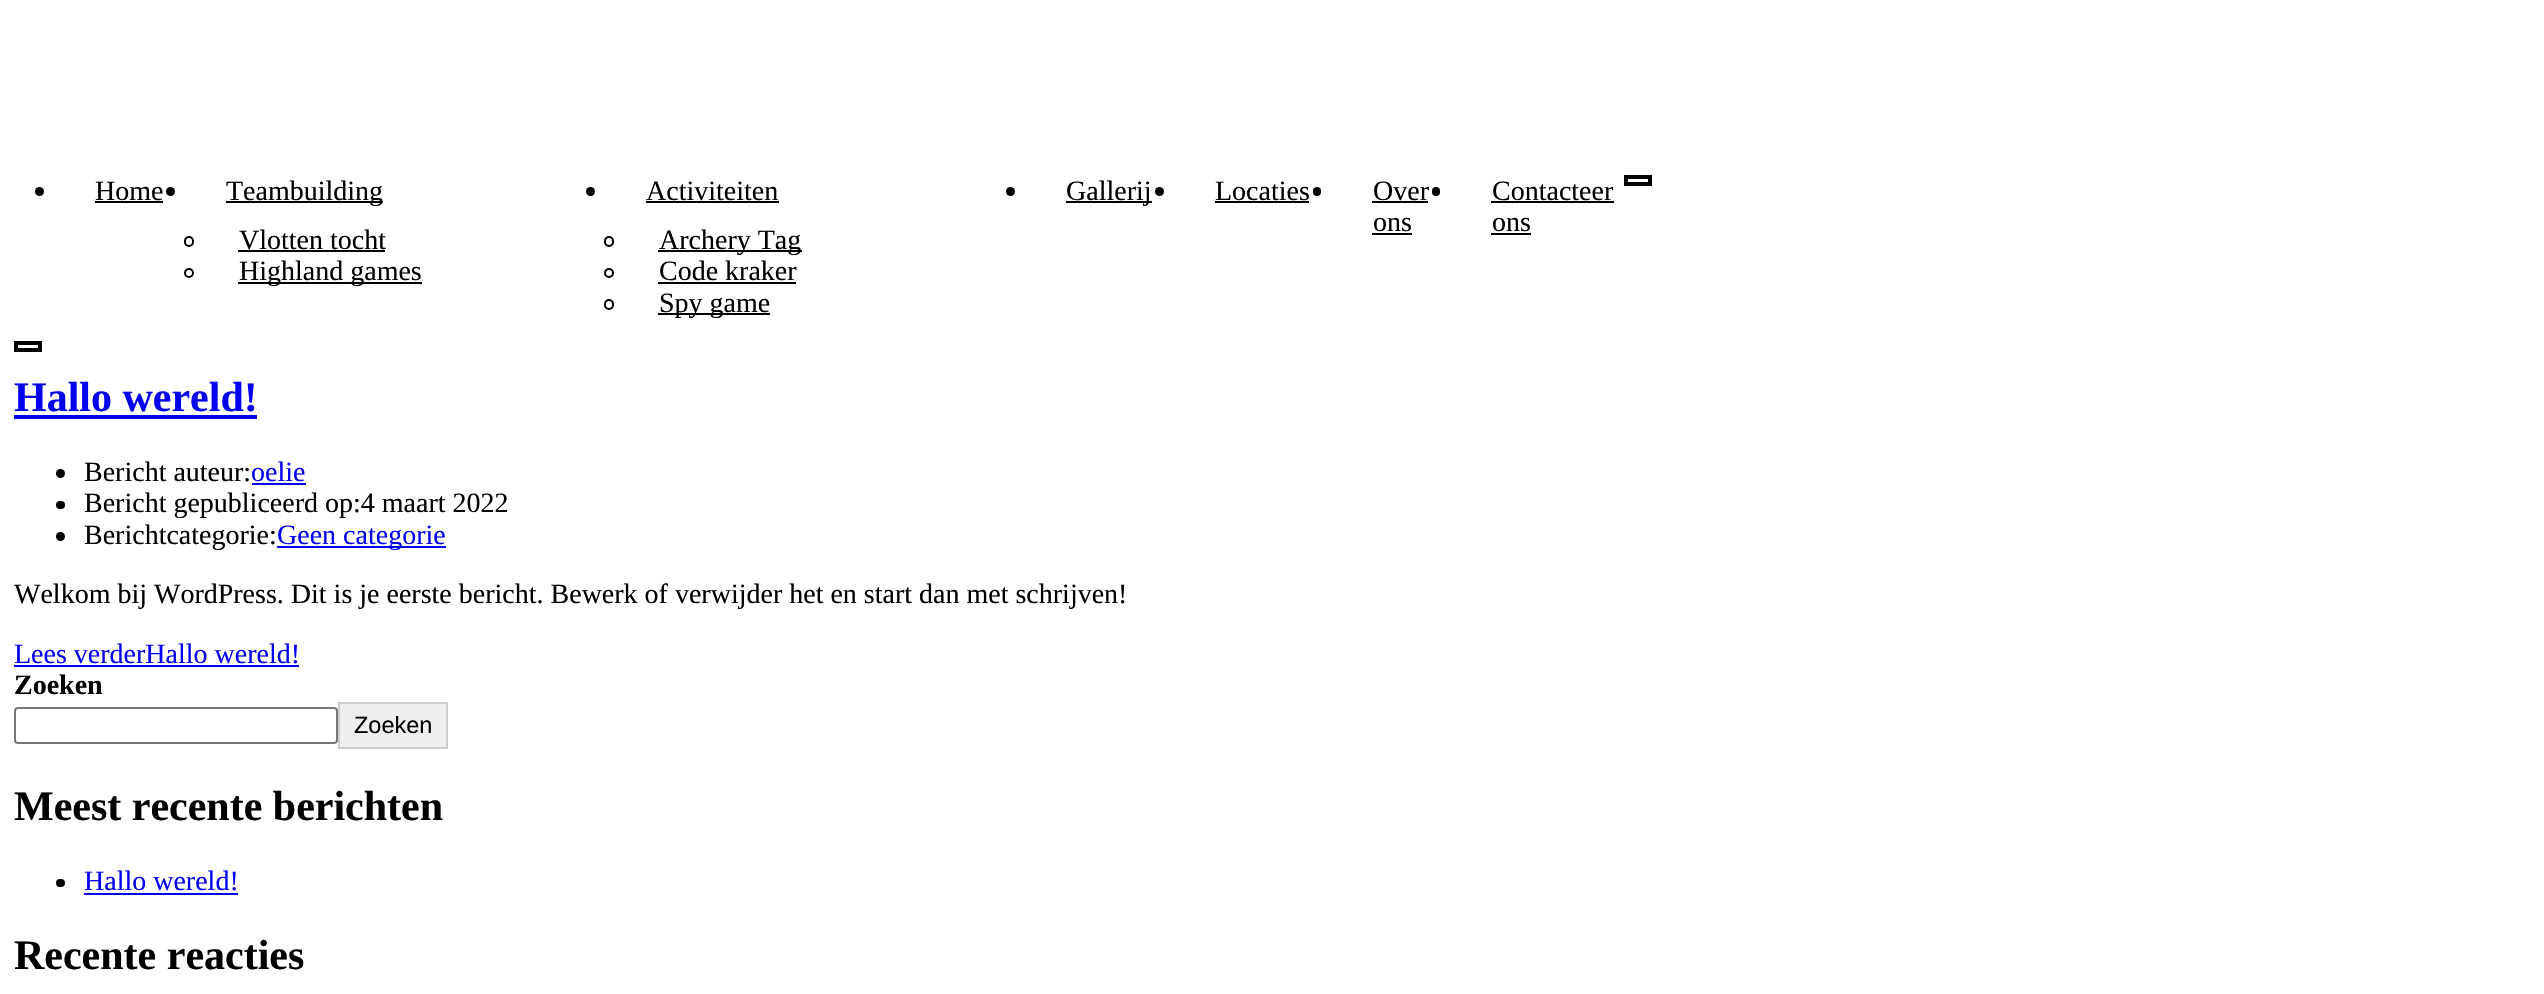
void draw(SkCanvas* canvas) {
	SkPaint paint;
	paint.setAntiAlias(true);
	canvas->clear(0xffffffff);
	paint.setColor(0xff000000);
	canvas->drawCircle(39.5, 191.5, 4.5, paint);
	SkFont f1(fontMgr->matchFamilyStyle("Liberation Serif", SkFontStyle::Normal()), 28);
	f1.setSubpixel(true);
	canvas->drawString("Home", 95, 200, f1, paint);
	canvas->drawRect(SkRect::MakeXYWH(95, 201, 68, 2), paint);
	canvas->drawCircle(170.5, 191.5, 4.5, paint);
	canvas->drawRect(SkRect::MakeXYWH(226, 201, 157, 2), paint);
	canvas->drawString("Teambuilding", 226, 200, f1, paint);
	paint.setStroke(true);
	paint.setStrokeWidth(2);
	canvas->drawRoundRect(SkRect::MakeXYWH(185, 237, 8, 9), 4, 4, paint);
	paint.setStroke(false);
	canvas->drawString("Vlotten tocht", 239, 249, f1, paint);
	canvas->drawRect(SkRect::MakeXYWH(238, 250, 147, 2), paint);
	paint.setStroke(true);
	canvas->drawCircle(189, 273, 4, paint);
	paint.setStroke(false);
	canvas->drawRect(SkRect::MakeXYWH(238, 282, 184, 2), paint);
	canvas->drawString("Highland games", 239, 280, f1, paint);
	canvas->drawCircle(590.5, 191.5, 4.5, paint);
	canvas->drawString("Activiteiten", 646, 200, f1, paint);
	canvas->drawRect(SkRect::MakeXYWH(646, 201, 133, 2), paint);
	paint.setStroke(true);
	canvas->drawRoundRect(SkRect::MakeXYWH(605, 237, 8, 9), 4, 4, paint);
	paint.setStroke(false);
	canvas->drawRect(SkRect::MakeXYWH(658, 250, 144, 2), paint);
	canvas->drawString("Archery Tag", 659, 249, f1, paint);
	paint.setStroke(true);
	canvas->drawCircle(609, 273, 4, paint);
	paint.setStroke(false);
	canvas->drawString("Code kraker", 659, 280, f1, paint);
	canvas->drawRect(SkRect::MakeXYWH(658, 282, 138, 2), paint);
	paint.setStroke(true);
	canvas->drawRoundRect(SkRect::MakeXYWH(605, 300, 8, 9), 4, 4, paint);
	paint.setStroke(false);
	canvas->drawRect(SkRect::MakeXYWH(658, 313, 112, 2), paint);
	canvas->drawString("Spy game", 659, 312, f1, paint);
	canvas->drawCircle(1010.5, 191.5, 4.5, paint);
	canvas->drawRect(SkRect::MakeXYWH(1066, 201, 86, 2), paint);
	canvas->drawString("Gallerij", 1066, 200, f1, paint);
	canvas->drawCircle(1159.5, 191.5, 4.5, paint);
	canvas->drawString("Locaties", 1215, 200, f1, paint);
	canvas->drawRect(SkRect::MakeXYWH(1215, 201, 94, 2), paint);
	canvas->drawRoundRect(SkRect::MakeXYWH(1313, 187, 8, 9), 4, 4, paint);
	canvas->drawString("Over", 1373, 200, f1, paint);
	canvas->drawRect(SkRect::MakeXYWH(1372, 201, 56, 2), paint);
	canvas->drawString("ons", 1373, 231, f1, paint);
	canvas->drawRect(SkRect::MakeXYWH(1372, 233, 40, 2), paint);
	canvas->drawRoundRect(SkRect::MakeXYWH(1432, 187, 8, 9), 4, 4, paint);
	canvas->drawString("Contacteer", 1492, 200, f1, paint);
	canvas->drawRect(SkRect::MakeXYWH(1491, 201, 123, 2), paint);
	canvas->drawString("ons", 1492, 231, f1, paint);
	canvas->drawRect(SkRect::MakeXYWH(1491, 233, 40, 2), paint);
	paint.setStroke(true);
	paint.setStrokeWidth(4);
	canvas->drawRect(SkRect::MakeXYWH(16, 343, 24, 7), paint);
	canvas->drawRect(SkRect::MakeXYWH(1626, 177, 24, 7), paint);
	SkFont f2(fontMgr->matchFamilyStyle("Liberation Serif", SkFontStyle::Bold()), 42);
	f2.setSubpixel(true);
	paint.setStroke(false);
	paint.setColor(0xff0000ee);
	canvas->drawString("Hallo wereld!", 14, 411, f2, paint);
	canvas->drawRect(SkRect::MakeXYWH(14, 415, 243, 4), paint);
	paint.setColor(0xff000000);
	canvas->drawCircle(60.5, 473.5, 4.5, paint);
	canvas->drawString("Bericht auteur:", 84, 481, f1, paint);
	paint.setColor(0xff0000ee);
	canvas->drawString("oelie", 251, 481, f1, paint);
	canvas->drawRect(SkRect::MakeXYWH(252, 483, 54, 2), paint);
	paint.setColor(0xff000000);
	canvas->drawRoundRect(SkRect::MakeXYWH(56, 501, 9, 8), 4, 4, paint);
	canvas->drawString("Bericht gepubliceerd op:4 maart 2022", 84, 512, f1, paint);
	canvas->drawCircle(60.5, 536.5, 4.5, paint);
	canvas->drawString("Berichtcategorie:", 84, 544, f1, paint);
	paint.setColor(0xff0000ee);
	canvas->drawRect(SkRect::MakeXYWH(277, 546, 169, 2), paint);
	canvas->drawString("Geen categorie", 277, 544, f1, paint);
	paint.setColor(0xff000000);
	canvas->drawString("Welkom bij WordPress. Dit is je eerste bericht. Bewerk of verwijder het en start dan met schrijven!", 14, 603, f1, paint);
	paint.setColor(0xff0000ee);
	canvas->drawString("Lees verderHallo wereld!", 14, 663, f1, paint);
	canvas->drawRect(SkRect::MakeXYWH(14, 665, 285, 2), paint);
	SkFont f3(fontMgr->matchFamilyStyle("Liberation Serif", SkFontStyle::Bold()), 28);
	f3.setSubpixel(true);
	paint.setColor(0xff000000);
	canvas->drawString("Zoeken", 14, 694, f3, paint);
	paint.setStroke(true);
	paint.setStrokeWidth(2);
	paint.setColor(0xff767676);
	canvas->drawRoundRect(SkRect::MakeXYWH(15, 708, 322, 35), 3, 3, paint);
	paint.setStroke(false);
	paint.setColor(0xffefefef);
	canvas->drawRect(SkRect::MakeXYWH(339, 703, 108, 45), paint);
	paint.setStroke(true);
	paint.setColor(0xffcccccc);
	canvas->drawRect(SkRect::MakeXYWH(339, 703, 108, 45), paint);
	SkFont f4(fontMgr->matchFamilyStyle("Liberation Sans", SkFontStyle::Normal()), 23.5);
	f4.setSubpixel(true);
	paint.setStroke(false);
	paint.setColor(0xff000000);
	canvas->drawString("Zoeken", 354, 733, f4, paint);
	canvas->drawString("Meest recente berichten", 14, 820, f2, paint);
	canvas->drawRoundRect(SkRect::MakeXYWH(56, 879, 9, 8), 4, 4, paint);
	paint.setColor(0xff0000ee);
	canvas->drawString("Hallo wereld!", 84, 890, f1, paint);
	canvas->drawRect(SkRect::MakeXYWH(84, 893, 154, 2), paint);
	paint.setColor(0xff000000);
	canvas->drawString("Recente reacties", 14, 969, f2, paint);
}
